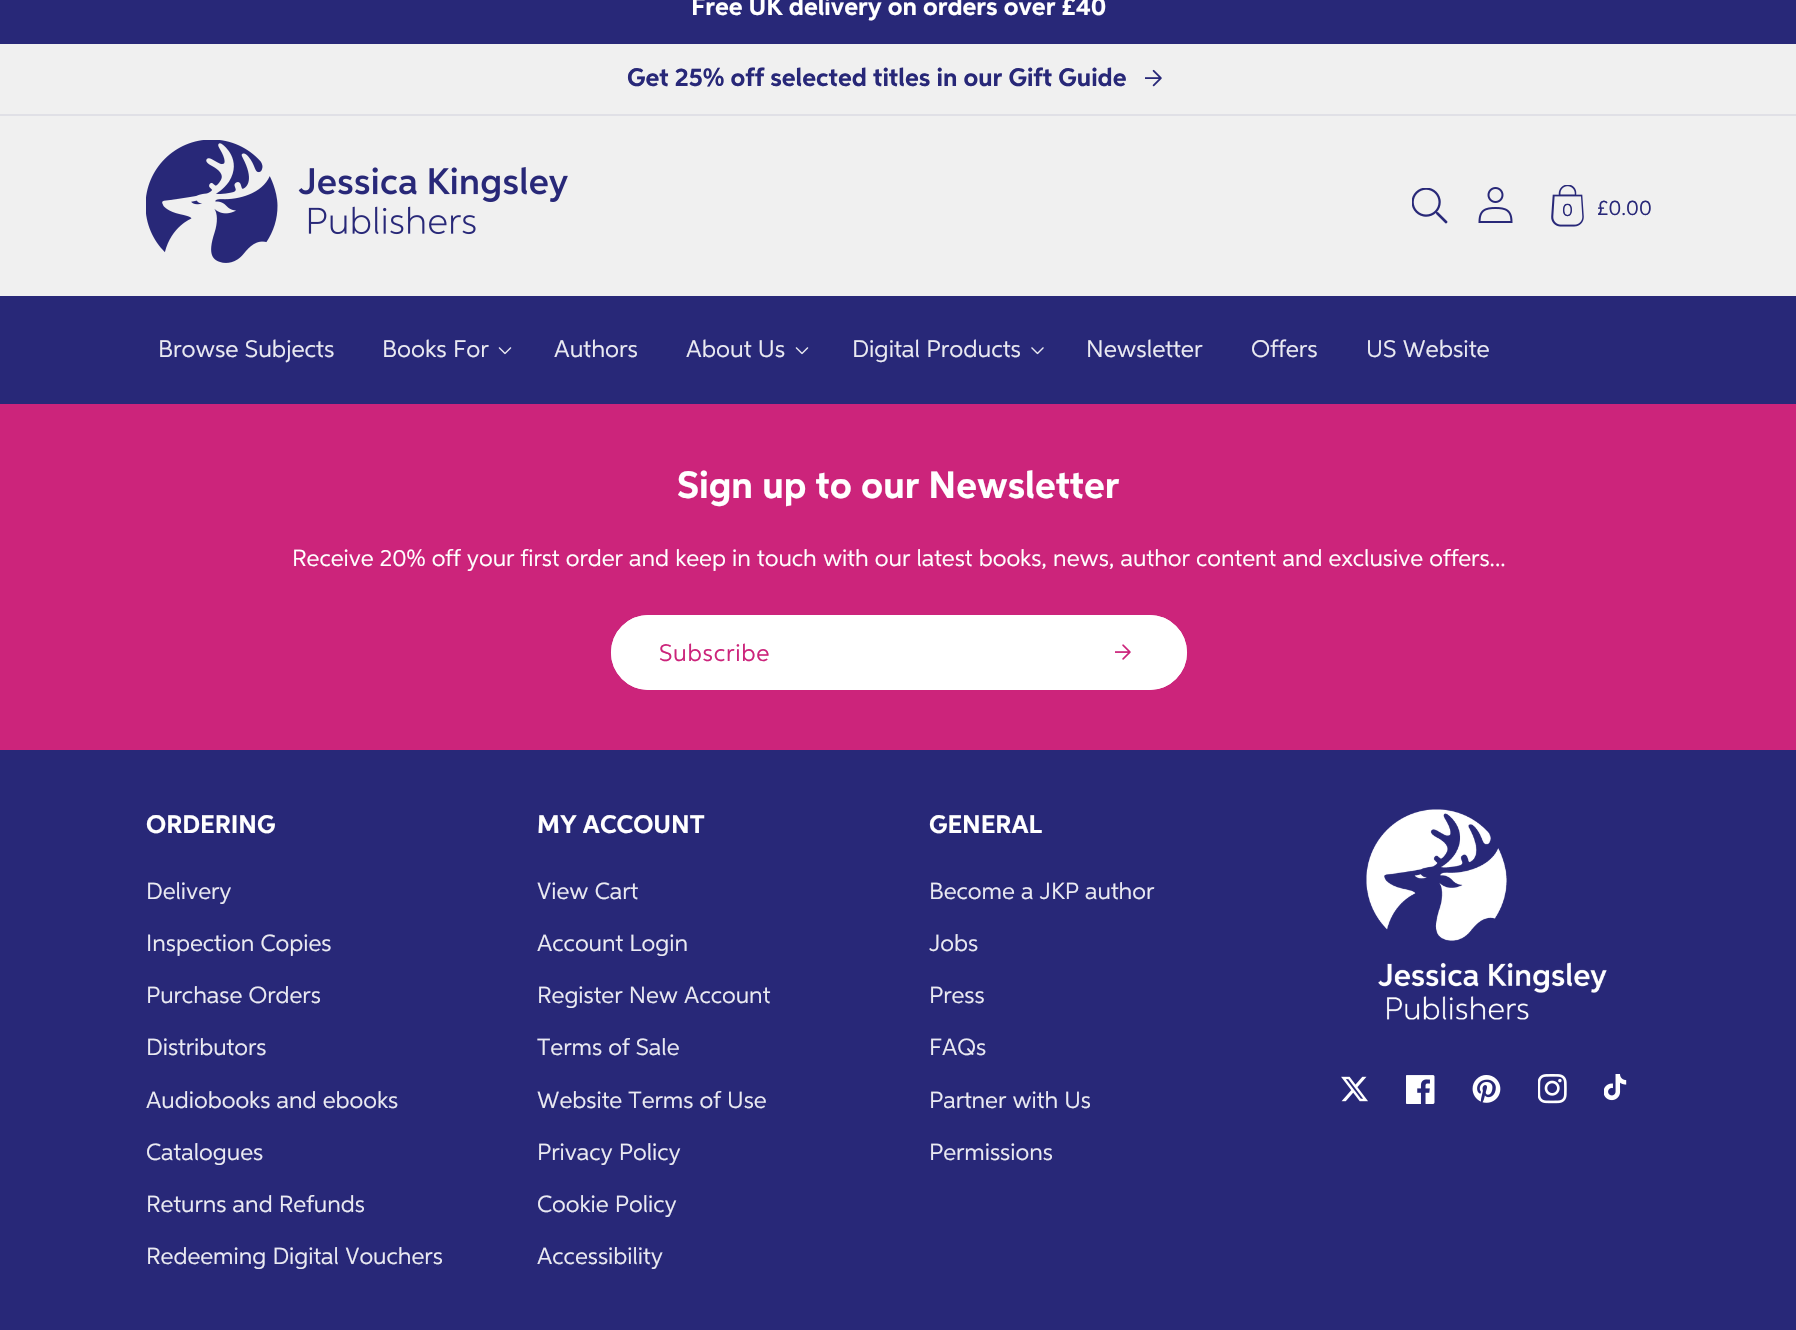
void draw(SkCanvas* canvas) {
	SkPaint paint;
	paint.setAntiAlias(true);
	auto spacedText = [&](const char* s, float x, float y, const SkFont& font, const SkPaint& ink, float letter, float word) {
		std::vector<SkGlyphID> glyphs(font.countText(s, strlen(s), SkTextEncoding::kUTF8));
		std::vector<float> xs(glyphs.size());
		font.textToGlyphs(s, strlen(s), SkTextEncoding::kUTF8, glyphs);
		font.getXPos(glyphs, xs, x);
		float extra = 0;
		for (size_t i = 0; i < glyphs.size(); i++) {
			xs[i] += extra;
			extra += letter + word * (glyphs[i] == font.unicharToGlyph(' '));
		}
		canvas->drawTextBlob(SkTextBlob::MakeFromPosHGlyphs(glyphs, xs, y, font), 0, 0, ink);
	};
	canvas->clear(0xfff0f0f0);
	paint.setColor(0xff282878);
	canvas->drawRect(SkRect::MakeXYWH(0, 0, 1796, 44), paint);
	SkFont f1(fontMgr->matchFamilyStyle("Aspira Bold", SkFontStyle::Bold()), 25.5);
	f1.setSubpixel(true);
	paint.setColor(0xffffffff);
	canvas->drawString("Free UK delivery on orders over £40", 691, 15, f1, paint);
	paint.setColor(0xffe0e0e6);
	canvas->drawRect(SkRect::MakeXYWH(0, 114, 1796, 2), paint);
	paint.setColor(0xff282878);
	canvas->drawString("Get 25% off selected titles in our Gift Guide", 627, 86, f1, paint);
	canvas->drawImageRect(SkImages::DeferredFromEncodedData(SkData::MakeFromFileName("img1.png")), SkRect::MakeXYWH(1145, 69, 17, 18), SkSamplingOptions());
	canvas->drawImageRect(SkImages::DeferredFromEncodedData(SkData::MakeFromFileName("img2.png")), SkRect::MakeXYWH(146, 140, 422, 123), SkSamplingOptions());
	canvas->drawImageRect(SkImages::DeferredFromEncodedData(SkData::MakeFromFileName("img3.png")), SkRect::MakeXYWH(1412, 188, 36, 36), SkSamplingOptions());
	canvas->drawImageRect(SkImages::DeferredFromEncodedData(SkData::MakeFromFileName("img4.png")), SkRect::MakeXYWH(1478, 187, 35, 36), SkSamplingOptions());
	canvas->drawImageRect(SkImages::DeferredFromEncodedData(SkData::MakeFromFileName("img5.png")), SkRect::MakeXYWH(1551, 185, 33, 42), SkSamplingOptions());
	SkFont f2(fontMgr->matchFamilyStyle("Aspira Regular", SkFontStyle::Normal()), 18);
	f2.setSubpixel(true);
	canvas->drawString("0", 1562, 216, f2, paint);
	SkFont f3(fontMgr->matchFamilyStyle("Aspira Regular", SkFontStyle::Normal()), 21);
	f3.setSubpixel(true);
	canvas->drawString("£0.00", 1597, 215, f3, paint);
	canvas->drawRect(SkRect::MakeXYWH(0, 296, 1796, 108), paint);
	SkFont f4(fontMgr->matchFamilyStyle("Aspira Regular", SkFontStyle::Normal()), 24);
	f4.setSubpixel(true);
	paint.setColor(0xffeaeaf2);
	canvas->drawString("Browse Subjects", 158, 357, f4, paint);
	canvas->drawString("Books For", 382, 357, f4, paint);
	canvas->drawImageRect(SkImages::DeferredFromEncodedData(SkData::MakeFromFileName("img6.png")), SkRect::MakeXYWH(498, 347, 14, 8), SkSamplingOptions());
	canvas->drawString("Authors", 554, 357, f4, paint);
	canvas->drawString("About Us", 686, 357, f4, paint);
	canvas->drawImageRect(SkImages::DeferredFromEncodedData(SkData::MakeFromFileName("img6.png")), SkRect::MakeXYWH(795, 347, 14, 8), SkSamplingOptions());
	canvas->drawString("Digital Products", 852, 357, f4, paint);
	canvas->drawImageRect(SkImages::DeferredFromEncodedData(SkData::MakeFromFileName("img7.png")), SkRect::MakeXYWH(1031, 347, 13, 8), SkSamplingOptions());
	canvas->drawString("Newsletter", 1086, 357, f4, paint);
	canvas->drawString("Offers", 1251, 357, f4, paint);
	canvas->drawString("US Website", 1366, 357, f4, paint);
	paint.setColor(0xffcc247b);
	canvas->drawRect(SkRect::MakeXYWH(0, 404, 1796, 346), paint);
	SkFont f5(fontMgr->matchFamilyStyle("Aspira Bold", SkFontStyle::Bold()), 38.25);
	f5.setSubpixel(true);
	paint.setColor(0xffffffff);
	canvas->drawString("Sign up to our Newsletter", 677, 498, f5, paint);
	SkFont f6(fontMgr->matchFamilyStyle("Aspira Regular", SkFontStyle::Normal()), 23.5);
	f6.setSubpixel(true);
	canvas->drawString("Receive 20% off your first order and keep in touch with our latest books, news, author content and exclusive offers...", 292, 566, f6, paint);
	canvas->drawRoundRect(SkRect::MakeXYWH(611, 615, 576, 75), 37.5, 37.5, paint);
	canvas->drawImageRect(SkImages::DeferredFromEncodedData(SkData::MakeFromFileName("img8.png")), SkRect::MakeXYWH(1115, 644, 16, 16), SkSamplingOptions());
	paint.setStroke(true);
	paint.setStrokeWidth(2);
	canvas->drawRoundRect(SkRect::MakeXYWH(612, 616, 574, 73), 36.5, 36.5, paint);
	paint.setStroke(false);
	paint.setColor(0xffcc247b);
	spacedText("Subscribe", 659, 661, f4, paint, 0.75, 0);
	paint.setColor(0xff282878);
	canvas->drawRect(SkRect::MakeXYWH(0, 750, 1796, 580), paint);
	paint.setColor(0xffffffff);
	canvas->drawString("ORDERING", 146, 833, f1, paint);
	paint.setColor(0xffeaeaf2);
	canvas->drawString("Delivery", 146, 899, f6, paint);
	canvas->drawString("Inspection Copies", 146, 951, f6, paint);
	canvas->drawString("Purchase Orders", 146, 1003, f6, paint);
	canvas->drawString("Distributors", 146, 1055, f6, paint);
	canvas->drawString("Audiobooks and ebooks", 146, 1108, f6, paint);
	canvas->drawString("Catalogues", 146, 1160, f6, paint);
	canvas->drawString("Returns and Refunds", 146, 1212, f6, paint);
	canvas->drawString("Redeeming Digital Vouchers", 146, 1264, f6, paint);
	paint.setColor(0xffffffff);
	canvas->drawString("MY ACCOUNT", 537, 833, f1, paint);
	paint.setColor(0xffeaeaf2);
	canvas->drawString("View Cart", 537, 899, f6, paint);
	canvas->drawString("Account Login", 537, 951, f6, paint);
	canvas->drawString("Register New Account", 537, 1003, f6, paint);
	canvas->drawString("Terms of Sale", 537, 1055, f6, paint);
	canvas->drawString("Website Terms of Use", 537, 1108, f6, paint);
	canvas->drawString("Privacy Policy", 537, 1160, f6, paint);
	canvas->drawString("Cookie Policy", 537, 1212, f6, paint);
	canvas->drawString("Accessibility", 537, 1264, f6, paint);
	paint.setColor(0xffffffff);
	canvas->drawString("GENERAL", 929, 833, f1, paint);
	paint.setColor(0xffeaeaf2);
	canvas->drawString("Become a JKP author", 929, 899, f6, paint);
	canvas->drawString("Jobs", 929, 951, f6, paint);
	canvas->drawString("Press", 929, 1003, f6, paint);
	canvas->drawString("FAQs", 929, 1055, f6, paint);
	canvas->drawString("Partner with Us", 929, 1108, f6, paint);
	canvas->drawString("Permissions", 929, 1160, f6, paint);
	canvas->drawImageRect(SkImages::DeferredFromEncodedData(SkData::MakeFromFileName("img9.png")), SkRect::MakeXYWH(1366, 809, 241, 211), SkSamplingOptions());
	canvas->drawImageRect(SkImages::DeferredFromEncodedData(SkData::MakeFromFileName("img10.png")), SkRect::MakeXYWH(1341, 1076, 27, 26), SkSamplingOptions());
	canvas->drawImageRect(SkImages::DeferredFromEncodedData(SkData::MakeFromFileName("img11.png")), SkRect::MakeXYWH(1406, 1075, 29, 29), SkSamplingOptions());
	canvas->drawImageRect(SkImages::DeferredFromEncodedData(SkData::MakeFromFileName("img12.png")), SkRect::MakeXYWH(1472, 1075, 29, 28), SkSamplingOptions());
	canvas->drawImageRect(SkImages::DeferredFromEncodedData(SkData::MakeFromFileName("img13.png")), SkRect::MakeXYWH(1538, 1074, 29, 30), SkSamplingOptions());
	canvas->drawImageRect(SkImages::DeferredFromEncodedData(SkData::MakeFromFileName("img14.png")), SkRect::MakeXYWH(1604, 1074, 23, 27), SkSamplingOptions());
}
